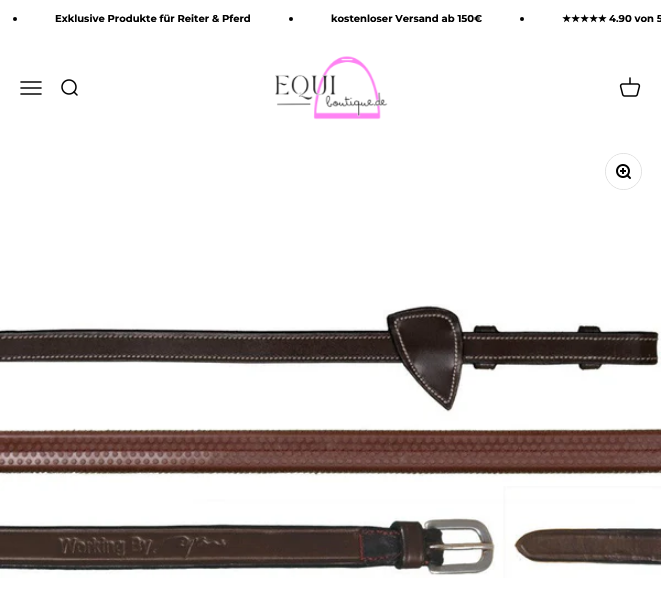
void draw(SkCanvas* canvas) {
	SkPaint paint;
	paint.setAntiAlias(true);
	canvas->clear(0xffffffff);
	paint.setColor(0xff000000);
	canvas->drawCircle(15, 19, 2, paint);
	SkFont f1(fontMgr->matchFamilyStyle("Montserrat", SkFontStyle::Bold()), 10);
	f1.setSubpixel(true);
	canvas->drawString("Exklusive Produkte für Reiter & Pferd", 55, 22, f1, paint);
	canvas->drawCircle(291, 19, 2, paint);
	canvas->drawString("kostenloser Versand ab 150€", 331, 22, f1, paint);
	canvas->drawCircle(522, 19, 2, paint);
	SkFont f2(fontMgr->matchFamilyStyle("DejaVu Sans", SkFontStyle::Bold()), 10);
	f2.setSubpixel(true);
	canvas->drawString("★★★★★", 562, 22, f2, paint);
	canvas->drawString("4.90 von 5", 609, 22, f1, paint);
	canvas->drawImageRect(SkImages::DeferredFromEncodedData(SkData::MakeFromFileName("img1.png")), SkRect::MakeXYWH(20, 81, 22, 14), SkSamplingOptions());
	canvas->drawImageRect(SkImages::DeferredFromEncodedData(SkData::MakeFromFileName("img2.png")), SkRect::MakeXYWH(61, 79, 17, 17), SkSamplingOptions());
	canvas->drawImageRect(SkImages::DeferredFromEncodedData(SkData::MakeFromFileName("img3.png")), SkRect::MakeXYWH(275, 56, 113, 64), SkSamplingOptions());
	canvas->drawImageRect(SkImages::DeferredFromEncodedData(SkData::MakeFromFileName("img4.png")), SkRect::MakeXYWH(619, 77, 22, 20), SkSamplingOptions());
	paint.setStroke(true);
	paint.setStrokeWidth(1);
	paint.setColor(0xffe0e0e0);
	canvas->drawCircle(623.5, 171.5, 18, paint);
	paint.setStroke(false);
	paint.setColor(0xffffffff);
	canvas->drawCircle(623.5, 171.5, 17.5, paint);
	canvas->drawImageRect(SkImages::DeferredFromEncodedData(SkData::MakeFromFileName("img5.png")), SkRect::MakeXYWH(616, 164, 15, 15), SkSamplingOptions());
	canvas->drawImageRect(SkImages::DeferredFromEncodedData(SkData::MakeFromFileName("img6.png")), SkRect::MakeXYWH(0, 304, 661, 274), SkSamplingOptions());
}
